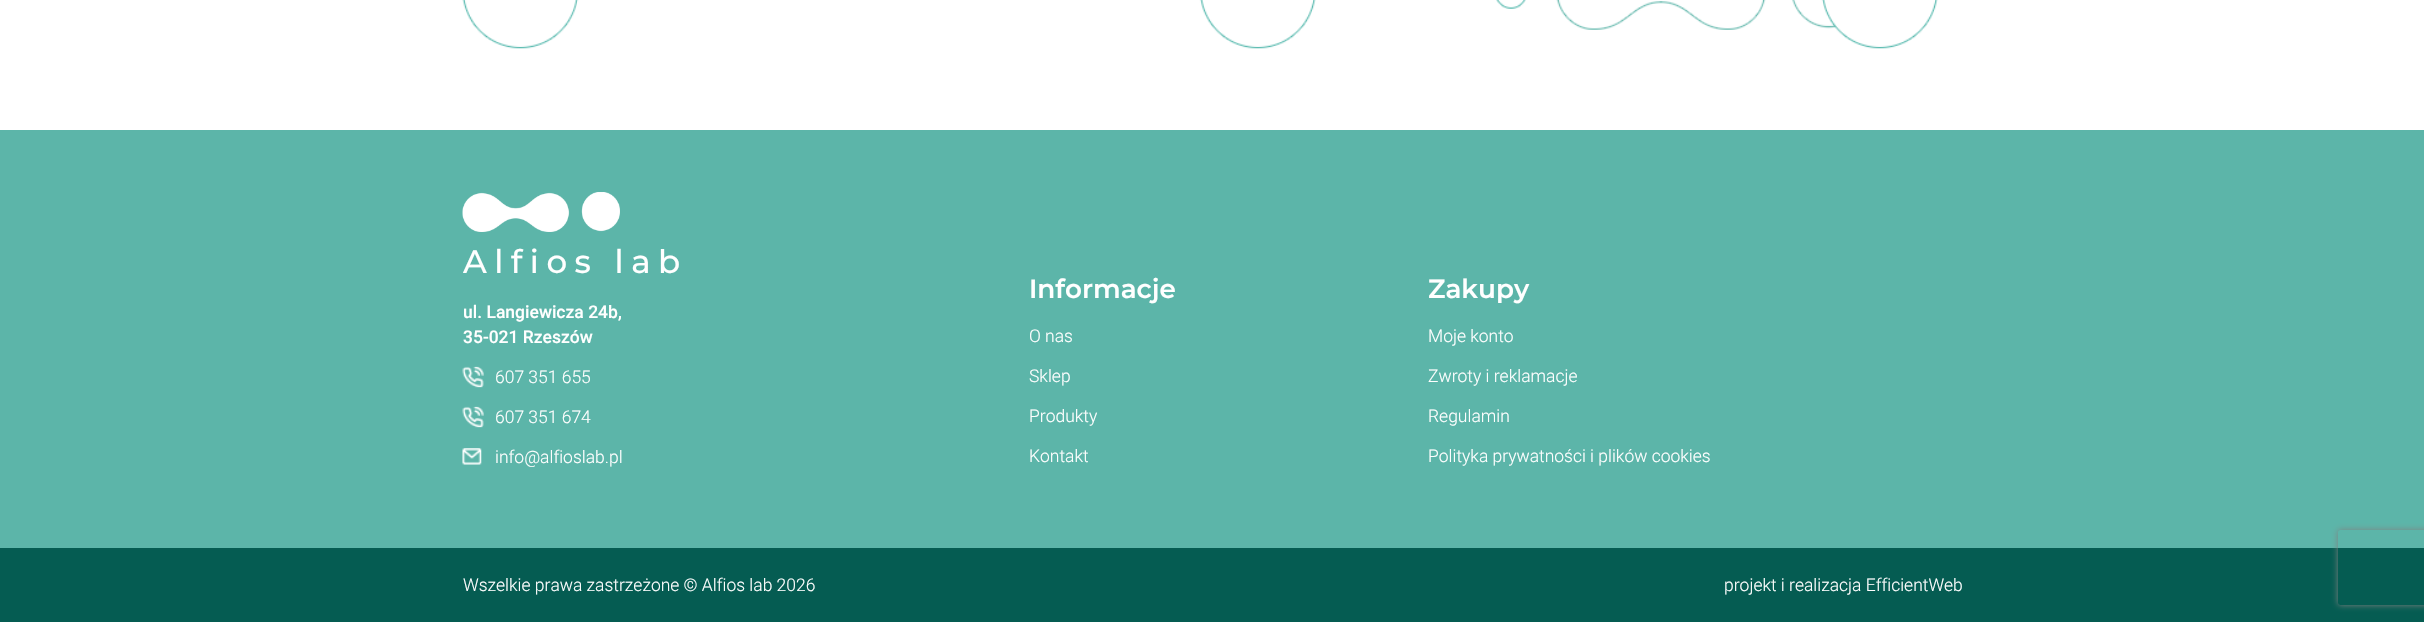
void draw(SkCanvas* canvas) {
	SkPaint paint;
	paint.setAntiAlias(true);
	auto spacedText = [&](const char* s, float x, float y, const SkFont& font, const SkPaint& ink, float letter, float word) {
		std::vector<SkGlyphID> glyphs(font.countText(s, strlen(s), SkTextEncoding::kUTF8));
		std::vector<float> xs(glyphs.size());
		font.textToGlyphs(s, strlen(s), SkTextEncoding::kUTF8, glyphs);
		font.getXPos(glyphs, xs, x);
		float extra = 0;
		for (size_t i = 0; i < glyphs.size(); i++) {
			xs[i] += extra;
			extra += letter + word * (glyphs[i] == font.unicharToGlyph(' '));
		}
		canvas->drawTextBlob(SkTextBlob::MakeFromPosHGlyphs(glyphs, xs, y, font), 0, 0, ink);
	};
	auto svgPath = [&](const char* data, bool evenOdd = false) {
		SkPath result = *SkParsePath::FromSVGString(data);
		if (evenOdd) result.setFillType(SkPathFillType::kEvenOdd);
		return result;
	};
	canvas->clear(0xffffffff);
	canvas->drawImageRect(SkImages::DeferredFromEncodedData(SkData::MakeFromFileName("img1.png")), SkRect::MakeXYWH(462, 0, 1476, 49), SkSamplingOptions());
	paint.setColor(0xff5cb5a9);
	canvas->drawRect(SkRect::MakeXYWH(0, 130, 2424, 418), paint);
	canvas->drawImageRect(SkImages::DeferredFromEncodedData(SkData::MakeFromFileName("img2.png")), SkRect::MakeXYWH(462, 192, 158, 40), SkSamplingOptions());
	SkFont f1(fontMgr->matchFamilyStyle("Montserrat", SkFontStyle(500, SkFontStyle::kNormal_Width, SkFontStyle::kUpright_Slant)), 32.5);
	f1.setSubpixel(true);
	paint.setColor(0xffffffff);
	spacedText("Alfios lab", 463, 273, f1, paint, 7.5, 0);
	SkFont f2(fontMgr->matchFamilyStyle("Roboto", SkFontStyle(500, SkFontStyle::kNormal_Width, SkFontStyle::kUpright_Slant)), 17.5);
	f2.setSubpixel(true);
	canvas->drawString("ul. Langiewicza 24b,", 463, 318, f2, paint);
	canvas->drawString("35-021 Rzeszów", 463, 343, f2, paint);
	canvas->drawImageRect(SkImages::DeferredFromEncodedData(SkData::MakeFromFileName("img3.png")), SkRect::MakeXYWH(462, 366, 22, 22), SkSamplingOptions());
	SkFont f3(fontMgr->matchFamilyStyle("Roboto", SkFontStyle(300, SkFontStyle::kNormal_Width, SkFontStyle::kUpright_Slant)), 17.5);
	f3.setSubpixel(true);
	canvas->drawString("607 351 655", 495, 383, f3, paint);
	canvas->drawImageRect(SkImages::DeferredFromEncodedData(SkData::MakeFromFileName("img3.png")), SkRect::MakeXYWH(462, 406, 22, 22), SkSamplingOptions());
	canvas->drawString("607 351 674", 495, 423, f3, paint);
	canvas->drawImageRect(SkImages::DeferredFromEncodedData(SkData::MakeFromFileName("img4.png")), SkRect::MakeXYWH(462, 448, 20, 17), SkSamplingOptions());
	canvas->drawString("info@alfioslab.pl", 495, 463, f3, paint);
	SkFont f4(fontMgr->matchFamilyStyle("Montserrat", SkFontStyle(600, SkFontStyle::kNormal_Width, SkFontStyle::kUpright_Slant)), 26.25);
	f4.setSubpixel(true);
	canvas->drawString("Informacje", 1029, 298, f4, paint);
	canvas->drawString("O nas", 1029, 342, f3, paint);
	canvas->drawString("Sklep", 1029, 382, f3, paint);
	canvas->drawString("Produkty", 1029, 422, f3, paint);
	canvas->drawString("Kontakt", 1029, 462, f3, paint);
	canvas->drawString("Zakupy", 1428, 298, f4, paint);
	canvas->drawString("Moje konto", 1428, 342, f3, paint);
	canvas->drawString("Zwroty i reklamacje", 1428, 382, f3, paint);
	canvas->drawString("Regulamin", 1428, 422, f3, paint);
	canvas->drawString("Polityka prywatności i plików cookies", 1428, 462, f3, paint);
	paint.setColor(0xff055c52);
	canvas->drawRect(SkRect::MakeXYWH(0, 548, 2424, 74), paint);
	paint.setColor(0xffffffff);
	canvas->drawString("Wszelkie prawa zastrzeżone © Alfios lab 2026", 463, 591, f3, paint);
	canvas->drawString("projekt i realizacja EfficientWeb", 1724, 591, f3, paint);
	canvas->save();
	canvas->clipPath(svgPath("M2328 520H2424V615H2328ZM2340.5 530H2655.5C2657 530 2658 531 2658 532.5V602.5C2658 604 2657 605 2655.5 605H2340.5C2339 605 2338 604 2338 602.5V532.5C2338 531 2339 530 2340.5 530Z", true), true);
	paint.setColor(0xff808080);
	paint.setMaskFilter(SkMaskFilter::MakeBlur(kNormal_SkBlurStyle, 3));
	canvas->drawRoundRect(SkRect::MakeXYWH(2338, 530, 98, 75), 2.5, 2.5, paint);
	paint.setMaskFilter(nullptr);
	canvas->restore();
}
